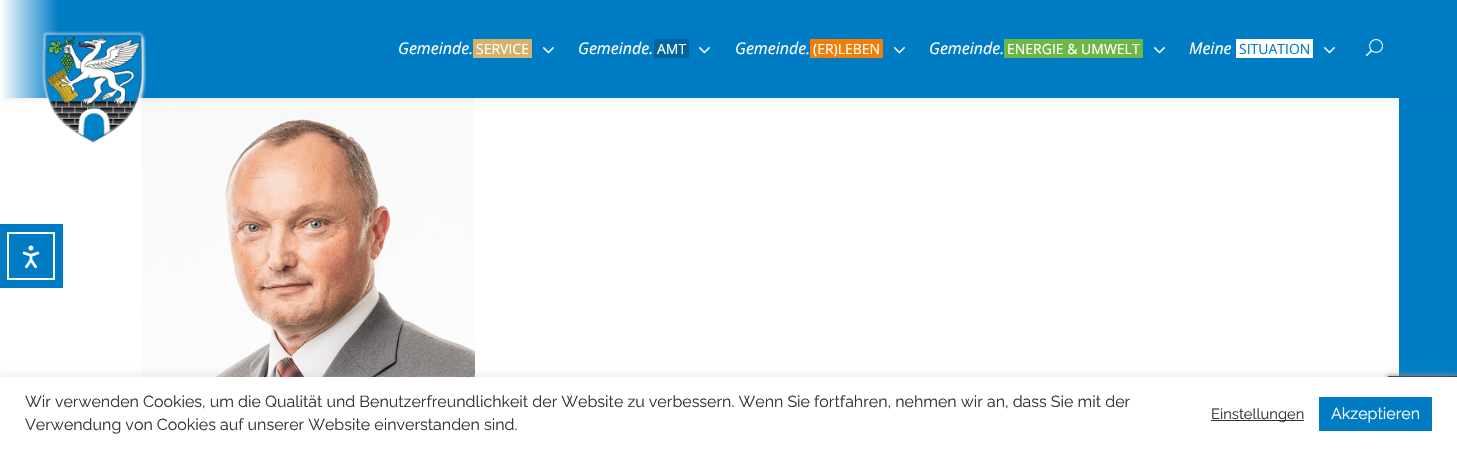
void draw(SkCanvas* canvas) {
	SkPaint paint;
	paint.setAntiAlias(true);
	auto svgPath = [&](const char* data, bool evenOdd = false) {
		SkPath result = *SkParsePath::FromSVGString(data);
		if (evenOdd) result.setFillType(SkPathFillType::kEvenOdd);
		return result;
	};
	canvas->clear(0xff007cc4);
	paint.setColor(0xffffffff);
	canvas->drawRect(SkRect::MakeXYWH(0, 98, 1399, 279), paint);
	canvas->drawImageRect(SkImages::DeferredFromEncodedData(SkData::MakeFromFileName("img4.png")), SkRect::MakeXYWH(141, 98, 334, 279), SkSamplingOptions());
	paint.setColor(0x1a000000);
	paint.setMaskFilter(SkMaskFilter::MakeBlur(kNormal_SkBlurStyle, 3.5));
	canvas->drawRect(SkRect::MakeXYWH(0, 0, 1457, 98), paint);
	paint.setMaskFilter(nullptr);
	{
		const SkColor colors[] = {0xffffffff, 0xff007cc4};
		const float stops[] = {0, 0.04};
		const SkPoint ends[] = {{0, 49}, {1457, 49}};
		paint.setShader(SkGradientShader::MakeLinear(ends, colors, stops, 2, SkTileMode::kClamp));
		paint.setAlpha(255);
	}
	canvas->drawRect(SkRect::MakeXYWH(0, 0, 1457, 98), paint);
	canvas->drawImageRect(SkImages::DeferredFromEncodedData(SkData::MakeFromFileName("img1.png")), SkRect::MakeXYWH(41, 31, 106, 112), SkSamplingOptions());
	SkFont f1(fontMgr->matchFamilyStyle("Open Sans", SkFontStyle::Italic()), 16);
	f1.setSubpixel(true);
	paint.setShader(nullptr);
	paint.setColor(0xffffffff);
	canvas->drawString("Gemeinde.", 398, 54, f1, paint);
	paint.setColor(0xffd5b26b);
	canvas->drawRect(SkRect::MakeXYWH(473, 39, 59, 19), paint);
	SkFont f2(fontMgr->matchFamilyStyle("Open Sans", SkFontStyle::Normal()), 14);
	f2.setSubpixel(true);
	paint.setColor(0xffffffff);
	canvas->drawString("SERVICE", 476, 54, f2, paint);
	canvas->drawImageRect(SkImages::DeferredFromEncodedData(SkData::MakeFromFileName("img2.png")), SkRect::MakeXYWH(542, 47, 12, 7), SkSamplingOptions());
	canvas->drawString("Gemeinde.", 578, 54, f1, paint);
	paint.setColor(0xff02659e);
	canvas->drawRect(SkRect::MakeXYWH(654, 39, 35, 19), paint);
	paint.setColor(0xffffffff);
	canvas->drawString("AMT", 657, 54, f2, paint);
	canvas->drawImageRect(SkImages::DeferredFromEncodedData(SkData::MakeFromFileName("img2.png")), SkRect::MakeXYWH(698, 47, 12, 7), SkSamplingOptions());
	canvas->drawString("Gemeinde.", 735, 54, f1, paint);
	paint.setColor(0xfff07f09);
	canvas->drawRect(SkRect::MakeXYWH(810, 39, 73, 19), paint);
	paint.setColor(0xffffffff);
	canvas->drawString("(ER)LEBEN", 813, 54, f2, paint);
	canvas->drawImageRect(SkImages::DeferredFromEncodedData(SkData::MakeFromFileName("img2.png")), SkRect::MakeXYWH(893, 47, 12, 7), SkSamplingOptions());
	canvas->drawString("Gemeinde.", 929, 54, f1, paint);
	paint.setColor(0xff6eb746);
	canvas->drawRect(SkRect::MakeXYWH(1004, 39, 139, 19), paint);
	paint.setColor(0xffffffff);
	canvas->drawString("ENERGIE & UMWELT", 1007, 54, f2, paint);
	canvas->drawImageRect(SkImages::DeferredFromEncodedData(SkData::MakeFromFileName("img2.png")), SkRect::MakeXYWH(1153, 47, 12, 7), SkSamplingOptions());
	canvas->drawString("Meine", 1189, 54, f1, paint);
	canvas->drawRect(SkRect::MakeXYWH(1236, 39, 77, 19), paint);
	paint.setColor(0xff007cc4);
	canvas->drawString("SITUATION", 1239, 54, f2, paint);
	canvas->drawImageRect(SkImages::DeferredFromEncodedData(SkData::MakeFromFileName("img2.png")), SkRect::MakeXYWH(1323, 47, 12, 7), SkSamplingOptions());
	canvas->drawImageRect(SkImages::DeferredFromEncodedData(SkData::MakeFromFileName("img3.png")), SkRect::MakeXYWH(1366, 39, 17, 18), SkSamplingOptions());
	canvas->drawRect(SkRect::MakeXYWH(0, 224, 63, 64), paint);
	paint.setStroke(true);
	paint.setStrokeWidth(2);
	paint.setColor(0xffffffff);
	canvas->drawRect(SkRect::MakeXYWH(8, 233, 46, 46), paint);
	canvas->drawImageRect(SkImages::DeferredFromEncodedData(SkData::MakeFromFileName("img5.png")), SkRect::MakeXYWH(22, 245, 18, 24), SkSamplingOptions());
	paint.setStroke(false);
	paint.setColor(0xff808080);
	paint.setMaskFilter(SkMaskFilter::MakeBlur(kNormal_SkBlurStyle, 2.5));
	canvas->drawRoundRect(SkRect::MakeXYWH(1387, 376, 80, 60), 2, 2, paint);
	paint.setMaskFilter(nullptr);
	paint.setColor(0xff333333);
	canvas->drawPath(svgPath("M1389 376L1387 377V435L1389 436H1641C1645 436 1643 429 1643 425V387C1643 383 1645 376 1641 376ZM1388 377V435H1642V377Z", true), paint);
	paint.setColor(0x4dacabab);
	paint.setMaskFilter(SkMaskFilter::MakeBlur(kNormal_SkBlurStyle, 5));
	canvas->drawRect(SkRect::MakeXYWH(0, 376, 1457, 73), paint);
	paint.setMaskFilter(nullptr);
	paint.setColor(0xffffffff);
	canvas->drawRect(SkRect::MakeXYWH(0, 377, 1457, 73), paint);
	SkFont f3(fontMgr->matchFamilyStyle("Raleway", SkFontStyle::Normal()), 16);
	f3.setSubpixel(true);
	paint.setColor(0xff333333);
	canvas->drawString("Wir verwenden Cookies, um die Qualität und Benutzerfreundlichkeit der Website zu verbessern. Wenn Sie fortfahren, nehmen wir an, dass Sie mit der", 25, 407, f3, paint);
	canvas->drawString("Verwendung von Cookies auf unserer Website einverstanden sind.", 25, 430, f3, paint);
	canvas->drawRect(SkRect::MakeXYWH(1211, 420, 93, 1), paint);
	SkFont f4(fontMgr->matchFamilyStyle("Raleway", SkFontStyle::Normal()), 14.75);
	f4.setSubpixel(true);
	canvas->drawString("Einstellungen", 1211, 419, f4, paint);
	paint.setColor(0xff007cc4);
	canvas->drawRect(SkRect::MakeXYWH(1319, 397, 113, 34), paint);
	paint.setColor(0xffffffff);
	canvas->drawString("Akzeptieren", 1331, 419, f3, paint);
}
